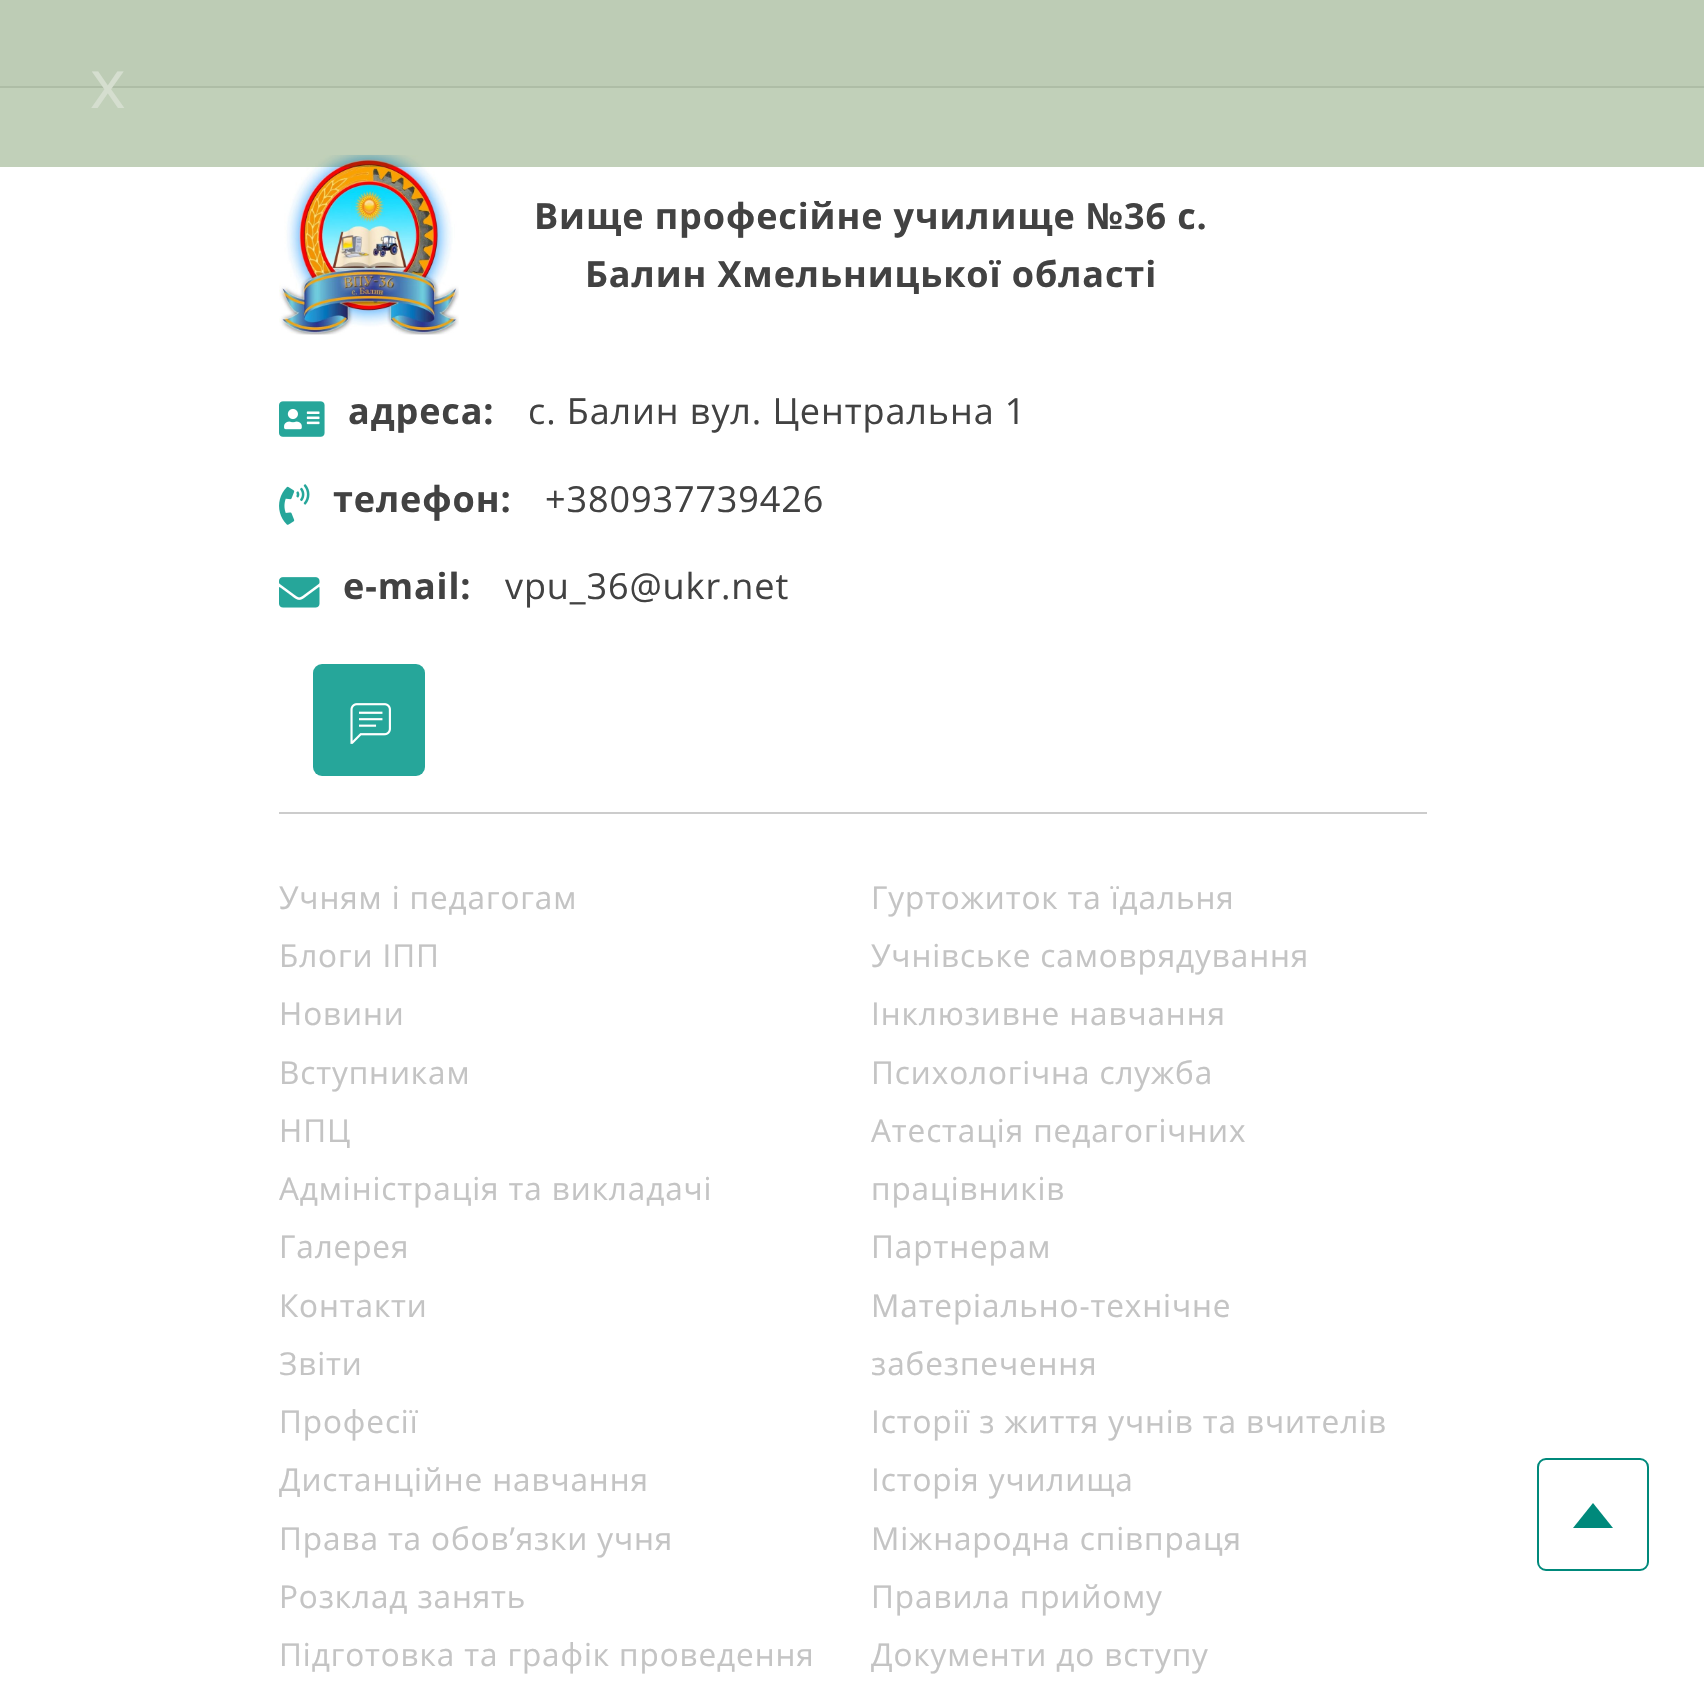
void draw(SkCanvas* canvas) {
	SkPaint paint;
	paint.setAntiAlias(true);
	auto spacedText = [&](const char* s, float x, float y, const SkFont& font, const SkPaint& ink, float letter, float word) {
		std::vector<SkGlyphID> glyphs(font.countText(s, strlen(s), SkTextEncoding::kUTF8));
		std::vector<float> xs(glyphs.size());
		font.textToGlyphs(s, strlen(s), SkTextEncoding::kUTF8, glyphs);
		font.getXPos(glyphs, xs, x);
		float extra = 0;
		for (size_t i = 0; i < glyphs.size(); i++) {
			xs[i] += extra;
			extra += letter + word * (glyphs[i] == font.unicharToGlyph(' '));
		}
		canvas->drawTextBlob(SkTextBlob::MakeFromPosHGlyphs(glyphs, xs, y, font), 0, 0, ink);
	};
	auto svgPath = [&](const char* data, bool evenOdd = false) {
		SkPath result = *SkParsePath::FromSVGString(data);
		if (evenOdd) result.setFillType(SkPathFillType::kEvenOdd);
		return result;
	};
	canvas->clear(0xfffafafa);
	paint.setColor(0xffffffff);
	canvas->drawRect(SkRect::MakeXYWH(0, 88, 1704, 1616), paint);
	paint.setColor(0xffe5e5e5);
	canvas->drawRect(SkRect::MakeXYWH(0, 86, 1704, 2), paint);
	canvas->drawImageRect(SkImages::DeferredFromEncodedData(SkData::MakeFromFileName("img1.png")), SkRect::MakeXYWH(279, 154, 180, 181), SkSamplingOptions());
	paint.setColor(0x47215502);
	canvas->drawRect(SkRect::MakeXYWH(0, 0, 1704, 167), paint);
	SkFont f1(fontMgr->matchFamilyStyle("Open Sans", SkFontStyle::Normal()), 68);
	f1.setSubpixel(true);
	paint.setColor(0xffd5decf);
	spacedText("x", 90, 108, f1, paint, 0.9, 0);
	SkFont f2(fontMgr->matchFamilyStyle("Open Sans", SkFontStyle::Bold()), 36);
	f2.setSubpixel(true);
	paint.setColor(0xff424242);
	spacedText("Вище професійне училище №36 с.", 534, 229, f2, paint, 0.9, 0);
	spacedText("Балин Хмельницької області", 585, 287, f2, paint, 0.9, 0);
	canvas->drawImageRect(SkImages::DeferredFromEncodedData(SkData::MakeFromFileName("img2.png")), SkRect::MakeXYWH(279, 401, 46, 36), SkSamplingOptions());
	spacedText("aдресa:", 348, 424, f2, paint, 0.9, 0);
	SkFont f3(fontMgr->matchFamilyStyle("Open Sans", SkFontStyle::Normal()), 36);
	f3.setSubpixel(true);
	spacedText("с. Балин вул. Центральна 1", 528, 424, f3, paint, 0.9, 0);
	canvas->drawImageRect(SkImages::DeferredFromEncodedData(SkData::MakeFromFileName("img3.png")), SkRect::MakeXYWH(279, 484, 31, 41), SkSamplingOptions());
	spacedText("телефон:", 333, 512, f2, paint, 0.9, 0);
	spacedText("+380937739426", 545, 512, f3, paint, 0.9, 0);
	canvas->drawImageRect(SkImages::DeferredFromEncodedData(SkData::MakeFromFileName("img4.png")), SkRect::MakeXYWH(279, 577, 41, 31), SkSamplingOptions());
	spacedText("e-mail:", 343, 599, f2, paint, 0.9, 0);
	spacedText("vpu_36@ukr.net", 505, 599, f3, paint, 0.9, 0);
	paint.setColor(0xff26a69a);
	canvas->drawRoundRect(SkRect::MakeXYWH(313, 664, 112, 112), 9, 9, paint);
	canvas->drawImageRect(SkImages::DeferredFromEncodedData(SkData::MakeFromFileName("img5.png")), SkRect::MakeXYWH(350, 703, 41, 41), SkSamplingOptions());
	paint.setStroke(true);
	paint.setStrokeWidth(2);
	paint.setColor(0xff00897b);
	canvas->drawRoundRect(SkRect::MakeXYWH(1538, 1459, 110, 111), 8, 8, paint);
	paint.setStroke(false);
	canvas->drawPath(svgPath("M1613 1528H1573L1593 1503Z"), paint);
	paint.setColor(0xffcccccc);
	canvas->drawRect(SkRect::MakeXYWH(279, 812, 1148, 2), paint);
	SkFont f4(fontMgr->matchFamilyStyle("Open Sans", SkFontStyle::Normal()), 31.5);
	f4.setSubpixel(true);
	paint.setColor(0xffc4c4c4);
	spacedText("Учням і педагогам", 279, 909, f4, paint, 0.9, 0);
	spacedText("Гуртожиток та їдальня", 871, 909, f4, paint, 0.9, 0);
	spacedText("Блоги ІПП", 279, 967, f4, paint, 0.9, 0);
	spacedText("Учнівське самоврядування", 871, 967, f4, paint, 0.9, 0);
	spacedText("Новини", 279, 1025, f4, paint, 0.9, 0);
	spacedText("Інклюзивне навчання", 871, 1025, f4, paint, 0.9, 0);
	spacedText("Вступникам", 279, 1084, f4, paint, 0.9, 0);
	spacedText("Психологічна служба", 871, 1084, f4, paint, 0.9, 0);
	spacedText("НПЦ", 279, 1142, f4, paint, 0.9, 0);
	spacedText("Атестація педагогічних", 871, 1142, f4, paint, 0.9, 0);
	spacedText("працівників", 871, 1200, f4, paint, 0.9, 0);
	spacedText("Адміністрація та викладачі", 279, 1200, f4, paint, 0.9, 0);
	spacedText("Галерея", 279, 1258, f4, paint, 0.9, 0);
	spacedText("Партнерам", 871, 1258, f4, paint, 0.9, 0);
	spacedText("Контакти", 279, 1317, f4, paint, 0.9, 0);
	spacedText("Матеріально-технічне", 871, 1317, f4, paint, 0.9, 0);
	spacedText("забезпечення", 871, 1375, f4, paint, 0.9, 0);
	spacedText("Звіти", 279, 1375, f4, paint, 0.9, 0);
	spacedText("Професії", 279, 1433, f4, paint, 0.9, 0);
	spacedText("Історії з життя учнів та вчителів", 871, 1433, f4, paint, 0.9, 0);
	spacedText("Дистанційне навчання", 279, 1491, f4, paint, 0.9, 0);
	spacedText("Історія училища", 871, 1491, f4, paint, 0.9, 0);
	spacedText("Права та обов’язки учня", 279, 1550, f4, paint, 0.9, 0);
	spacedText("Міжнародна співпраця", 871, 1550, f4, paint, 0.9, 0);
	spacedText("Розклад занять", 279, 1608, f4, paint, 0.9, 0);
	spacedText("Правила прийому", 871, 1608, f4, paint, 0.9, 0);
	spacedText("Підготовка та графік проведення", 279, 1666, f4, paint, 0.9, 0);
	spacedText("Документи до вступу", 871, 1666, f4, paint, 0.9, 0);
}
